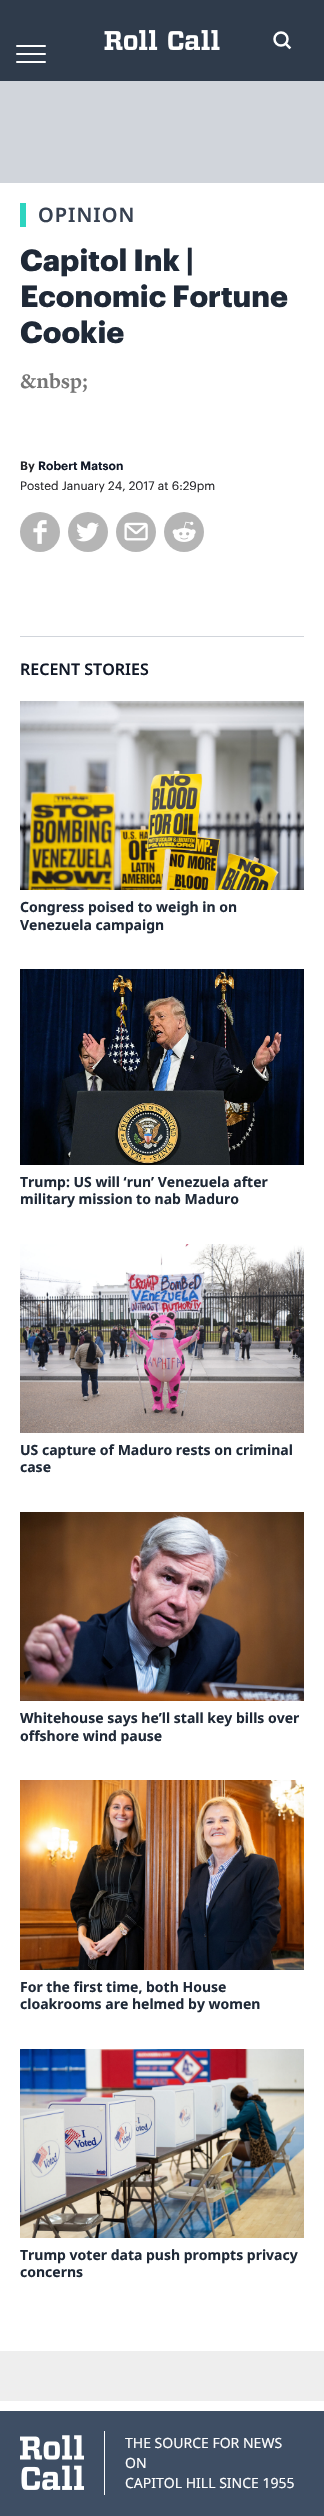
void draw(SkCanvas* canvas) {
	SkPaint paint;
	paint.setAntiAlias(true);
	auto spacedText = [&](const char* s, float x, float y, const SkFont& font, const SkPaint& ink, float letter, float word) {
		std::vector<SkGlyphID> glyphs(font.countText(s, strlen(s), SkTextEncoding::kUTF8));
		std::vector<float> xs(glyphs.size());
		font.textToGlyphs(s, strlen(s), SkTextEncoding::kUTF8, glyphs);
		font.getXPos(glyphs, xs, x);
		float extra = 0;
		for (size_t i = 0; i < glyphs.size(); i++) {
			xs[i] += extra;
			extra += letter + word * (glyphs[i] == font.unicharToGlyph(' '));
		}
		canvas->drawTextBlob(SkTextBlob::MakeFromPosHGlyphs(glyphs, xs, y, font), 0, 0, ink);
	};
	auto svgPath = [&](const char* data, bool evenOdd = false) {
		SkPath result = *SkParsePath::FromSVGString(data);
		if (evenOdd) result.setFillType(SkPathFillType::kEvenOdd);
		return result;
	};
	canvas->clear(0xffffffff);
	paint.setColor(0xff2f3b4b);
	canvas->drawRect(SkRect::MakeXYWH(0, 0, 324, 81), paint);
	canvas->drawImageRect(SkImages::DeferredFromEncodedData(SkData::MakeFromFileName("img1.png")), SkRect::MakeXYWH(104, 30, 116, 20), SkSamplingOptions());
	paint.setStroke(true);
	paint.setStrokeWidth(2.5);
	paint.setColor(0xffffffff);
	canvas->drawCircle(281, 39, 6.5, paint);
	paint.setStrokeCap(SkPaint::kSquare_Cap);
	canvas->drawPath(svgPath("M289.5 47.5L286 44"), paint);
	paint.setStroke(false);
	canvas->drawRoundRect(SkRect::MakeXYWH(16, 53, 30, 2), 1, 1, paint);
	canvas->drawRoundRect(SkRect::MakeXYWH(16, 45, 30, 2), 1, 1, paint);
	canvas->drawRoundRect(SkRect::MakeXYWH(16, 61, 30, 2), 1, 1, paint);
	paint.setColor(0xffd1d5db);
	canvas->drawRect(SkRect::MakeXYWH(0, 81, 324, 102), paint);
	paint.setColor(0xff2dd4bf);
	canvas->drawRect(SkRect::MakeXYWH(20, 203, 6, 24), paint);
	SkFont f1(fontMgr->matchFamilyStyle("Noto Sans", SkFontStyle(600, SkFontStyle::kNormal_Width, SkFontStyle::kUpright_Slant)), 20);
	f1.setSubpixel(true);
	paint.setColor(0xff374151);
	spacedText("OPINION", 38, 222, f1, paint, 1, 0);
	SkFont f2(fontMgr->matchFamilyStyle("Graphik", SkFontStyle::Bold()), 30);
	f2.setSubpixel(true);
	paint.setColor(0xff1f2937);
	canvas->drawString("Capitol Ink |", 20, 271, f2, paint);
	canvas->drawString("Economic Fortune", 20, 307, f2, paint);
	canvas->drawString("Cookie", 20, 343, f2, paint);
	SkFont f3(fontMgr->matchFamilyStyle("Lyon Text", SkFontStyle(600, SkFontStyle::kNormal_Width, SkFontStyle::kUpright_Slant)), 20);
	f3.setSubpixel(true);
	paint.setColor(0xff767676);
	canvas->drawString("&nbsp;", 20, 388, f3, paint);
	SkFont f4(fontMgr->matchFamilyStyle("Graphik", SkFontStyle(600, SkFontStyle::kNormal_Width, SkFontStyle::kUpright_Slant)), 12);
	f4.setSubpixel(true);
	paint.setColor(0xff27272a);
	canvas->drawString("By", 20, 470, f4, paint);
	paint.setColor(0xff111827);
	canvas->drawString("Robert Matson", 38, 470, f4, paint);
	SkFont f5(fontMgr->matchFamilyStyle("Graphik", SkFontStyle::Normal()), 12);
	f5.setSubpixel(true);
	paint.setColor(0xff27272a);
	canvas->drawString("Posted January 24, 2017 at 6:29pm", 20, 490, f5, paint);
	paint.setColor(0xffb5b5b5);
	canvas->drawCircle(40, 532, 20, paint);
	canvas->drawImageRect(SkImages::DeferredFromEncodedData(SkData::MakeFromFileName("img2.png")), SkRect::MakeXYWH(33, 520, 14, 24), SkSamplingOptions());
	canvas->drawCircle(88, 532, 20, paint);
	canvas->drawImageRect(SkImages::DeferredFromEncodedData(SkData::MakeFromFileName("img3.png")), SkRect::MakeXYWH(76, 522, 23, 20), SkSamplingOptions());
	canvas->drawCircle(136, 532, 20, paint);
	canvas->drawImageRect(SkImages::DeferredFromEncodedData(SkData::MakeFromFileName("img4.png")), SkRect::MakeXYWH(124, 522, 24, 19), SkSamplingOptions());
	canvas->drawCircle(184, 532, 20, paint);
	canvas->drawImageRect(SkImages::DeferredFromEncodedData(SkData::MakeFromFileName("img5.png")), SkRect::MakeXYWH(172, 521, 24, 21), SkSamplingOptions());
	paint.setColor(0xffd1d5db);
	canvas->drawRect(SkRect::MakeXYWH(20, 636, 284, 1), paint);
	SkFont f6(fontMgr->matchFamilyStyle("Noto Sans", SkFontStyle(600, SkFontStyle::kNormal_Width, SkFontStyle::kUpright_Slant)), 16);
	f6.setSubpixel(true);
	paint.setColor(0xff111827);
	canvas->drawString("RECENT STORIES", 20, 675, f6, paint);
	canvas->drawImageRect(SkImages::DeferredFromEncodedData(SkData::MakeFromFileName("img6.png")), SkRect::MakeXYWH(20, 701, 284, 189), SkSamplingOptions());
	SkFont f7(fontMgr->matchFamilyStyle("Noto Sans", SkFontStyle::Bold()), 14);
	f7.setSubpixel(true);
	paint.setColor(0xff1f2937);
	canvas->drawString("Congress poised to weigh in on", 20, 912, f7, paint);
	canvas->drawString("Venezuela campaign", 20, 930, f7, paint);
	canvas->drawImageRect(SkImages::DeferredFromEncodedData(SkData::MakeFromFileName("img7.png")), SkRect::MakeXYWH(20, 969, 284, 196), SkSamplingOptions());
	canvas->drawString("Trump: US will ‘run’ Venezuela after", 20, 1187, f7, paint);
	canvas->drawString("military mission to nab Maduro", 20, 1204, f7, paint);
	canvas->drawImageRect(SkImages::DeferredFromEncodedData(SkData::MakeFromFileName("img8.png")), SkRect::MakeXYWH(20, 1244, 284, 189), SkSamplingOptions());
	canvas->drawString("US capture of Maduro rests on criminal", 20, 1455, f7, paint);
	canvas->drawString("case", 20, 1472, f7, paint);
	canvas->drawImageRect(SkImages::DeferredFromEncodedData(SkData::MakeFromFileName("img9.png")), SkRect::MakeXYWH(20, 1512, 284, 189), SkSamplingOptions());
	canvas->drawString("Whitehouse says he’ll stall key bills over", 20, 1723, f7, paint);
	canvas->drawString("offshore wind pause", 20, 1741, f7, paint);
	canvas->drawImageRect(SkImages::DeferredFromEncodedData(SkData::MakeFromFileName("img10.png")), SkRect::MakeXYWH(20, 1780, 284, 190), SkSamplingOptions());
	canvas->drawString("For the first time, both House", 20, 1992, f7, paint);
	canvas->drawString("cloakrooms are helmed by women", 20, 2009, f7, paint);
	canvas->drawImageRect(SkImages::DeferredFromEncodedData(SkData::MakeFromFileName("img11.png")), SkRect::MakeXYWH(20, 2049, 284, 189), SkSamplingOptions());
	canvas->drawString("Trump voter data push prompts privacy", 20, 2260, f7, paint);
	canvas->drawString("concerns", 20, 2277, f7, paint);
	paint.setColor(0xffeeeeee);
	canvas->drawRect(SkRect::MakeXYWH(0, 2351, 324, 50), paint);
	paint.setColor(0xff3e4e64);
	canvas->drawRect(SkRect::MakeXYWH(0, 2411, 324, 105), paint);
	paint.setColor(0xffffffff);
	canvas->drawRect(SkRect::MakeXYWH(104, 2431, 1, 64), paint);
	canvas->drawImageRect(SkImages::DeferredFromEncodedData(SkData::MakeFromFileName("img12.png")), SkRect::MakeXYWH(20, 2435, 64, 55), SkSamplingOptions());
	SkFont f8(fontMgr->matchFamilyStyle("Noto Sans", SkFontStyle::Normal()), 14);
	f8.setSubpixel(true);
	canvas->drawString("THE SOURCE FOR NEWS", 125, 2448, f8, paint);
	canvas->drawString("ON", 125, 2468, f8, paint);
	canvas->drawString("CAPITOL HILL SINCE 1955", 125, 2488, f8, paint);
}
